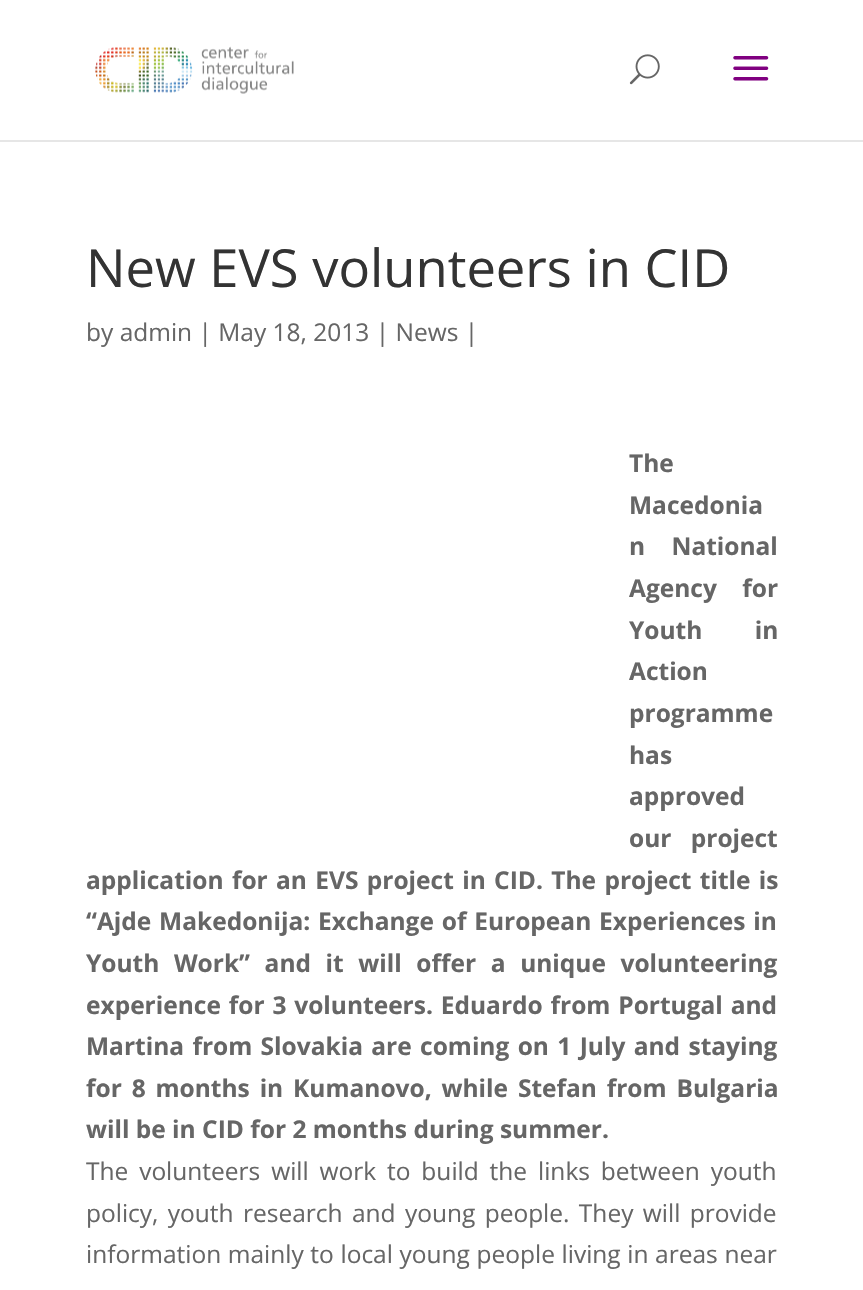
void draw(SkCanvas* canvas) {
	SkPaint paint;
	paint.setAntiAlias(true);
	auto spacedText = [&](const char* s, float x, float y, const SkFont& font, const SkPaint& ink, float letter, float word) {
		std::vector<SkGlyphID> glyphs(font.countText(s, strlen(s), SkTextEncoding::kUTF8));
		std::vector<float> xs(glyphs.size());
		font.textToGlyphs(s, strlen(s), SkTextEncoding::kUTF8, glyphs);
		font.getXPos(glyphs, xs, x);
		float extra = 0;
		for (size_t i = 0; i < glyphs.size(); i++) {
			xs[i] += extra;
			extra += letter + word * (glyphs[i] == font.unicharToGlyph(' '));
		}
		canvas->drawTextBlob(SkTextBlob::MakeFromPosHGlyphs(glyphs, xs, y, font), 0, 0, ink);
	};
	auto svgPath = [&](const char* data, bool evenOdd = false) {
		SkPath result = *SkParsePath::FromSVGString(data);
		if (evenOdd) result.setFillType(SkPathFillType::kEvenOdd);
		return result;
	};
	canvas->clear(0xffffffff);
	paint.setColor(0xffe6e6e6);
	canvas->drawPath(svgPath("M0 140V142H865V2H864V140Z"), paint);
	canvas->drawImageRect(SkImages::DeferredFromEncodedData(SkData::MakeFromFileName("img1.png")), SkRect::MakeXYWH(95, 46, 199, 48), SkSamplingOptions());
	canvas->drawImageRect(SkImages::DeferredFromEncodedData(SkData::MakeFromFileName("img2.png")), SkRect::MakeXYWH(629, 54, 31, 31), SkSamplingOptions());
	canvas->drawImageRect(SkImages::DeferredFromEncodedData(SkData::MakeFromFileName("img3.png")), SkRect::MakeXYWH(733, 56, 36, 25), SkSamplingOptions());
	SkFont f1(fontMgr->matchFamilyStyle("Open Sans", SkFontStyle::Normal()), 52.5);
	f1.setSubpixel(true);
	paint.setColor(0xff333333);
	canvas->drawString("New EVS volunteers in CID", 86, 287, f1, paint);
	SkFont f2(fontMgr->matchFamilyStyle("Open Sans", SkFontStyle::Normal()), 24.5);
	f2.setSubpixel(true);
	paint.setColor(0xff666666);
	canvas->drawString("by admin | May 18, 2013 | News |", 86, 341, f2, paint);
	SkFont f3(fontMgr->matchFamilyStyle("Open Sans", SkFontStyle::Bold()), 24.5);
	f3.setSubpixel(true);
	canvas->drawString("The", 629, 472, f3, paint);
	canvas->drawString("Macedonia", 629, 514, f3, paint);
	spacedText("n National", 629, 555, f3, paint, 0, 20);
	spacedText("Agency for", 629, 597, f3, paint, 0, 19);
	spacedText("Youth in", 629, 639, f3, paint, 0, 46);
	canvas->drawString("Action", 629, 680, f3, paint);
	canvas->drawString("programme", 629, 722, f3, paint);
	canvas->drawString("has", 629, 764, f3, paint);
	canvas->drawString("approved", 629, 805, f3, paint);
	spacedText("our project", 629, 847, f3, paint, 0, 13);
	spacedText("application for an EVS project in CID. The project title is", 86, 889, f3, paint, 0, 2);
	spacedText("“Ajde Makedonija: Exchange of European Experiences in", 86, 930, f3, paint, 0, 1.5);
	spacedText("Youth Work” and it will offer a unique volunteering", 86, 972, f3, paint, 0, 8.25);
	spacedText("experience for 3 volunteers. Eduardo from Portugal and", 86, 1014, f3, paint, 0, 1.5);
	spacedText("Martina from Slovakia are coming on 1 July and staying", 86, 1055, f3, paint, 0, 2);
	spacedText("for 8 months in Kumanovo, while Stefan from Bulgaria", 86, 1097, f3, paint, 0, 3.5);
	canvas->drawString("will be in CID for 2 months during summer.", 86, 1138, f3, paint);
	spacedText("The volunteers will work to build the links between youth", 86, 1180, f2, paint, 0, 4.5);
	spacedText("policy, youth research and young people. They will provide", 86, 1222, f2, paint, 0, 3);
	spacedText("information mainly to local young people living in areas near", 86, 1263, f2, paint, 0, 0.25);
}
